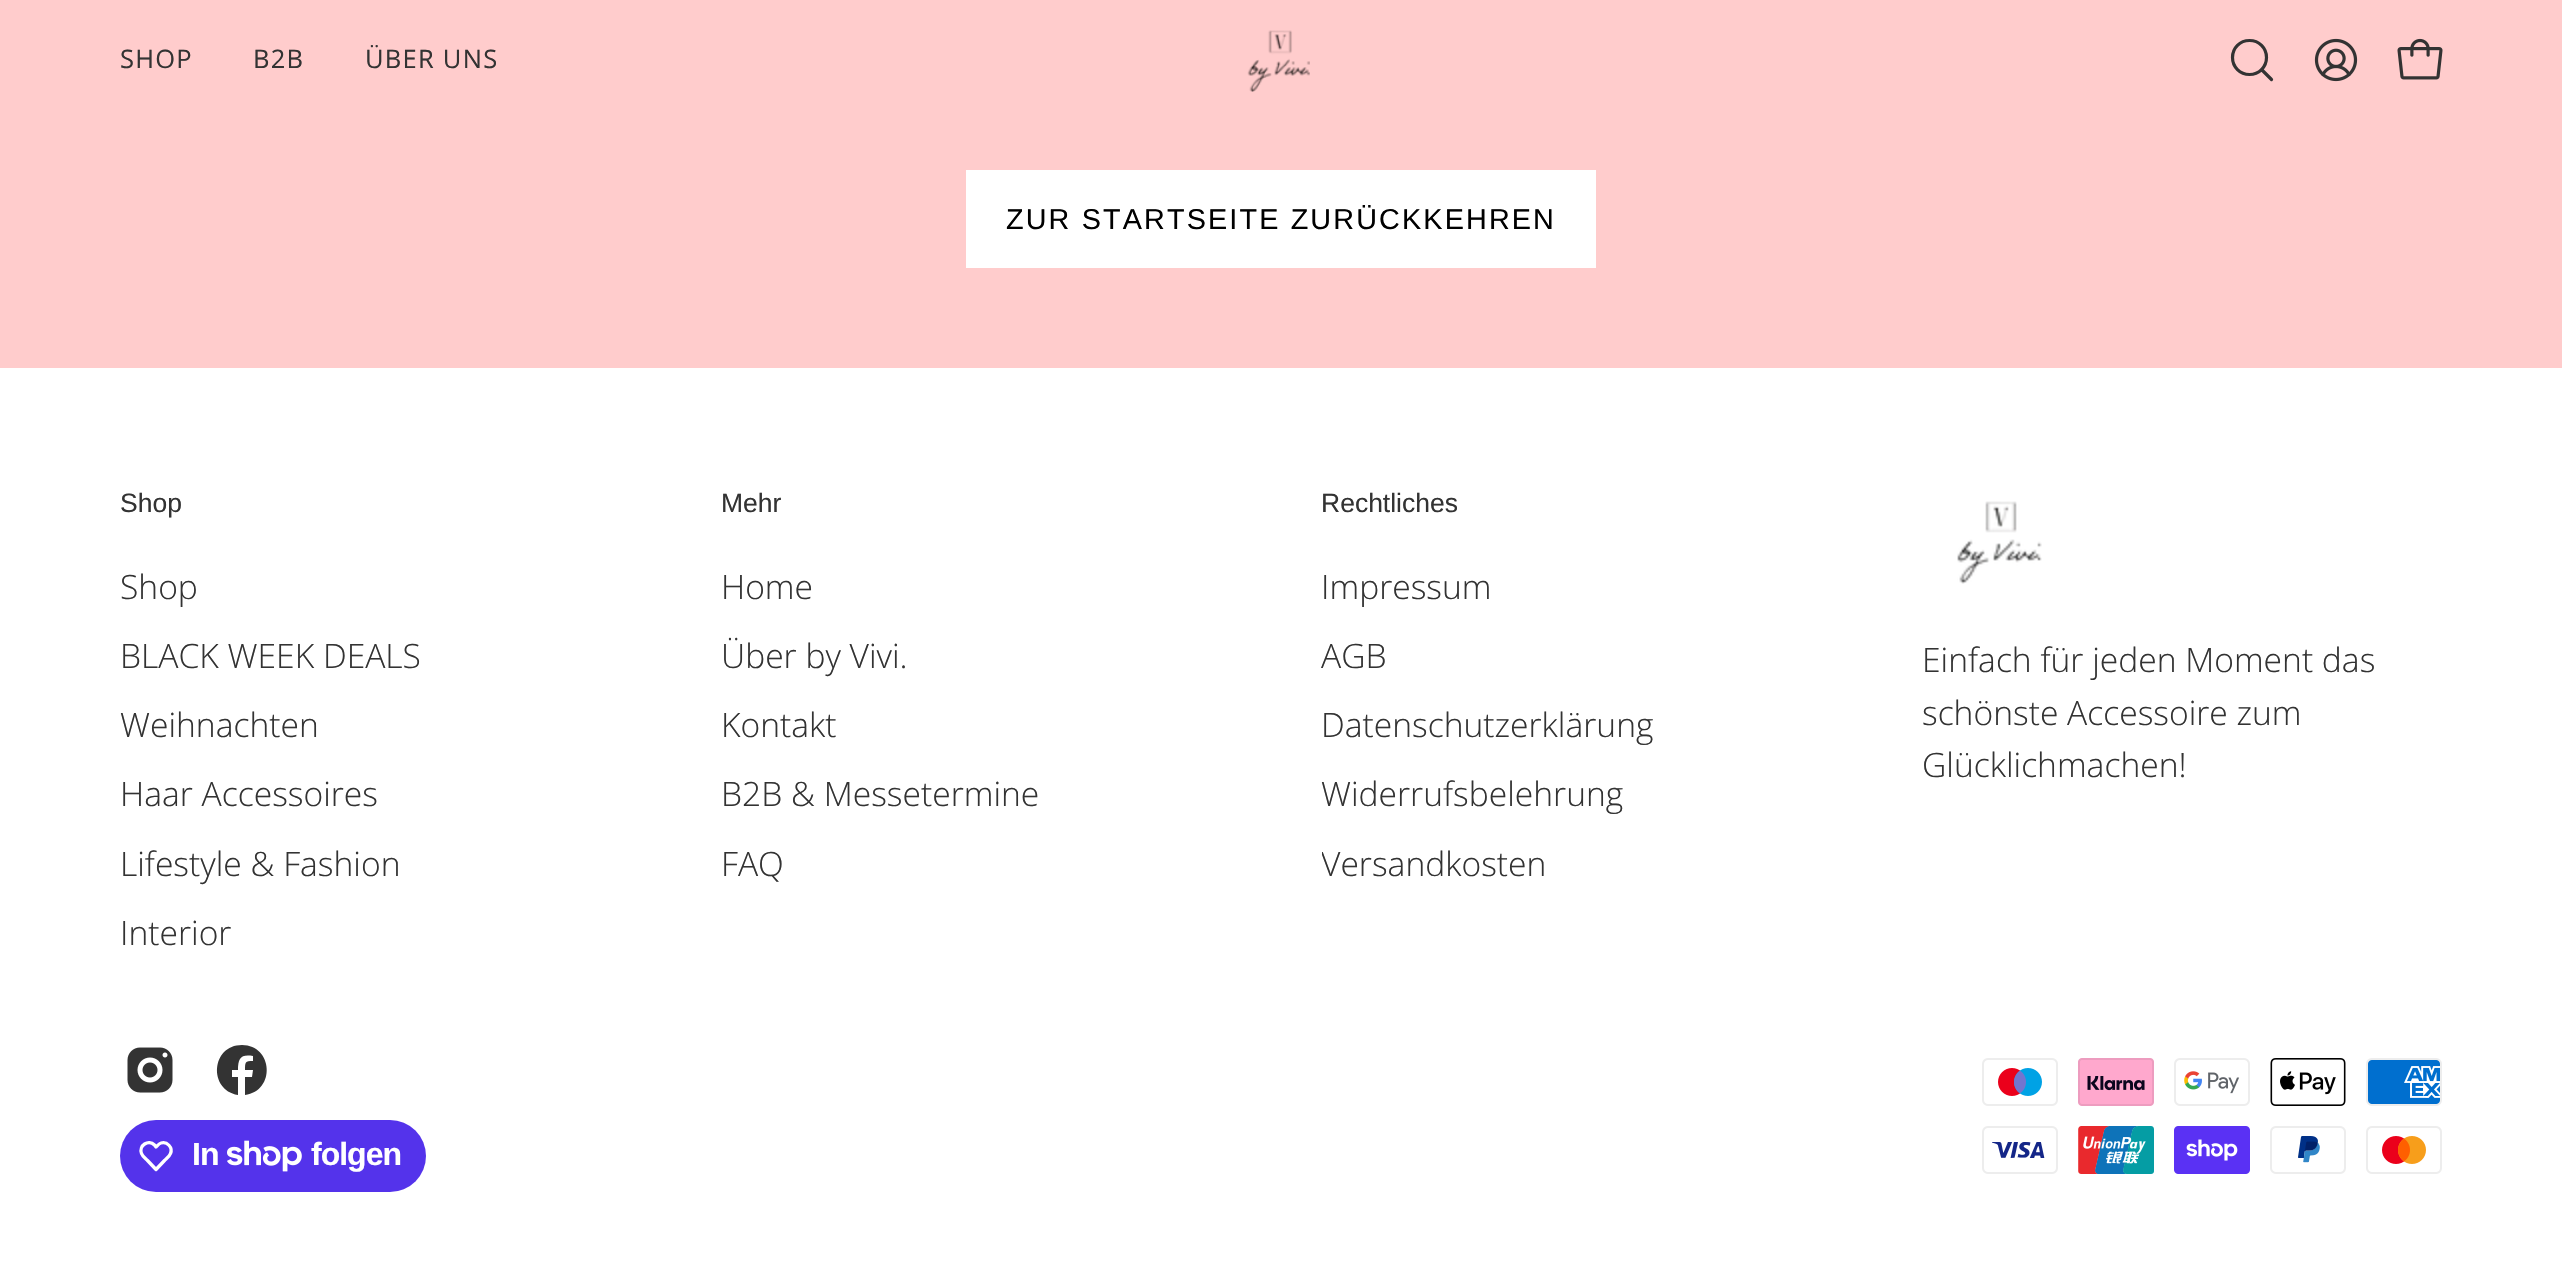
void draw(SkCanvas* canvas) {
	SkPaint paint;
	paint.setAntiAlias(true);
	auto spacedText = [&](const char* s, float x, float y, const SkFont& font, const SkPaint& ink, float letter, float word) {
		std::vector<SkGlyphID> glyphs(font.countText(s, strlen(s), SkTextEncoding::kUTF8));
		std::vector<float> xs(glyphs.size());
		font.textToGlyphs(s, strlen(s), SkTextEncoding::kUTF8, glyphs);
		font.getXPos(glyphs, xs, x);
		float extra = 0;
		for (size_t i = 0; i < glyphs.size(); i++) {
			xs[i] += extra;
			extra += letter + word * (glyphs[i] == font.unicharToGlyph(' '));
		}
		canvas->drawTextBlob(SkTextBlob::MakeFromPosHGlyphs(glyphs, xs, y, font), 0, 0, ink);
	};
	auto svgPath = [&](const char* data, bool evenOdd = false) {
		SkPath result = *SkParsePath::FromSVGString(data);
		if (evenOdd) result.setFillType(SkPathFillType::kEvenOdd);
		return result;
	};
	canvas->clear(0xffffcccc);
	SkFont f1(fontMgr->matchFamilyStyle("Open Sans", SkFontStyle::Normal()), 25.5);
	f1.setSubpixel(true);
	paint.setColor(0xff333333);
	spacedText("SHOP", 120, 68, f1, paint, 1.25, 0);
	spacedText("B2B", 253, 68, f1, paint, 1.25, 0);
	spacedText("ÜBER UNS", 365, 68, f1, paint, 1.25, 0);
	paint.setStroke(true);
	paint.setStrokeWidth(3.2);
	paint.setStrokeCap(SkPaint::kRound_Cap);
	paint.setStrokeJoin(SkPaint::kRound_Join);
	canvas->drawPath(svgPath("M2249.5 74.5C2259 74.5 2266.5 67 2266.5 57.5C2266.5 48 2259 40.5 2249.5 40.5C2240 40.5 2232.5 48 2232.5 57.5C2232.5 67 2240 74.5 2249.5 74.5ZM2261.5 69.5L2271.5 79.5"), paint);
	canvas->drawImageRect(SkImages::DeferredFromEncodedData(SkData::MakeFromFileName("img1.png")), SkRect::MakeXYWH(2314, 38, 44, 44), SkSamplingOptions());
	canvas->drawImageRect(SkImages::DeferredFromEncodedData(SkData::MakeFromFileName("img2.png")), SkRect::MakeXYWH(2397, 38, 46, 42), SkSamplingOptions());
	canvas->drawImageRect(SkImages::DeferredFromEncodedData(SkData::MakeFromFileName("img3.png")), SkRect::MakeXYWH(1247, 30, 63, 62), SkSamplingOptions());
	paint.setStroke(false);
	paint.setColor(0xffffffff);
	canvas->drawRect(SkRect::MakeXYWH(966, 170, 630, 98), paint);
	SkFont f2(fontMgr->matchFamilyStyle("Liberation Sans", SkFontStyle::Normal()), 28.75);
	f2.setSubpixel(true);
	paint.setColor(0xff000000);
	spacedText("ZUR STARTSEITE ZURÜCKKEHREN", 1006, 229, f2, paint, 2.15, 0);
	paint.setColor(0xffffffff);
	canvas->drawRect(SkRect::MakeXYWH(0, 368, 2562, 907), paint);
	SkFont f3(fontMgr->matchFamilyStyle("Liberation Sans", SkFontStyle::Normal()), 26.5);
	f3.setSubpixel(true);
	paint.setColor(0xff333333);
	canvas->drawString("Shop", 120, 512, f3, paint);
	SkFont f4(fontMgr->matchFamilyStyle("Open Sans", SkFontStyle(300, SkFontStyle::kNormal_Width, SkFontStyle::kUpright_Slant)), 33.6);
	f4.setSubpixel(true);
	canvas->drawString("Shop", 120, 599, f4, paint);
	canvas->drawString("BLACK WEEK DEALS", 120, 668, f4, paint);
	canvas->drawString("Weihnachten", 120, 737, f4, paint);
	canvas->drawString("Haar Accessoires", 120, 806, f4, paint);
	canvas->drawString("Lifestyle & Fashion", 120, 876, f4, paint);
	canvas->drawString("Interior", 120, 945, f4, paint);
	canvas->drawString("Mehr", 721, 512, f3, paint);
	canvas->drawString("Home", 721, 599, f4, paint);
	canvas->drawString("Über by Vivi.", 721, 668, f4, paint);
	canvas->drawString("Kontakt", 721, 737, f4, paint);
	canvas->drawString("B2B & Messetermine", 721, 806, f4, paint);
	canvas->drawString("FAQ", 721, 876, f4, paint);
	canvas->drawString("Rechtliches", 1321, 512, f3, paint);
	canvas->drawString("Impressum", 1321, 599, f4, paint);
	canvas->drawString("AGB", 1321, 668, f4, paint);
	canvas->drawString("Datenschutzerklärung", 1321, 737, f4, paint);
	canvas->drawString("Widerrufsbelehrung", 1321, 806, f4, paint);
	canvas->save();
	canvas->clipRect(SkRect::MakeXYWH(1322, 560, 520, 330));
	canvas->drawString("Versandkosten", 1321, 876, f4, paint);
	canvas->restore();
	canvas->drawImageRect(SkImages::DeferredFromEncodedData(SkData::MakeFromFileName("img4.png")), SkRect::MakeXYWH(1957, 501, 85, 83), SkSamplingOptions());
	canvas->drawString("Einfach für jeden Moment das", 1922, 672, f4, paint);
	canvas->drawString("schönste Accessoire zum", 1922, 725, f4, paint);
	canvas->drawString("Glücklichmachen!", 1922, 777, f4, paint);
	canvas->drawImageRect(SkImages::DeferredFromEncodedData(SkData::MakeFromFileName("img5.png")), SkRect::MakeXYWH(127, 1047, 46, 46), SkSamplingOptions());
	canvas->drawPath(svgPath("M242 1045C211 1045 208 1090 238 1095V1077H232V1070H238C238 1058 241 1054 253 1056V1061C245 1061 245 1062 245 1070H253L252 1077H245V1095C276 1091 273 1045 242 1045Z"), paint);
	paint.setColor(0xff5433eb);
	canvas->drawRoundRect(SkRect::MakeXYWH(120, 1120, 306, 72), 36, 36, paint);
	paint.setStroke(true);
	paint.setStrokeWidth(3.3);
	paint.setStrokeCap(SkPaint::kButt_Cap);
	paint.setColor(0xffffffff);
	canvas->drawPath(svgPath("M154.5 1145L156 1147C157.5 1145.5 159 1143.5 161 1143C167 1141 173 1147.5 170.5 1153.5C169.5 1156.5 166.5 1158.5 164.5 1160.5L156 1169.5L147.5 1160.5C145.5 1158.5 142.5 1156.5 141.5 1153.5C138.5 1145.5 148.5 1139 154.5 1145Z"), paint);
	SkFont f5(fontMgr->matchFamilyStyle("Liberation Sans", SkFontStyle::Bold()), 32);
	f5.setSubpixel(true);
	paint.setStroke(false);
	spacedText("In", 192, 1165, f5, paint, -1, 0);
	canvas->drawImageRect(SkImages::DeferredFromEncodedData(SkData::MakeFromFileName("img6.png")), SkRect::MakeXYWH(227, 1140, 75, 32), SkSamplingOptions());
	spacedText("folgen", 311, 1165, f5, paint, -1, 0);
	canvas->drawImageRect(SkImages::DeferredFromEncodedData(SkData::MakeFromFileName("img7.png")), SkRect::MakeXYWH(1982, 1058, 76, 48), SkSamplingOptions());
	canvas->drawImageRect(SkImages::DeferredFromEncodedData(SkData::MakeFromFileName("img8.png")), SkRect::MakeXYWH(2078, 1058, 76, 48), SkSamplingOptions());
	canvas->drawImageRect(SkImages::DeferredFromEncodedData(SkData::MakeFromFileName("img9.png")), SkRect::MakeXYWH(2174, 1058, 76, 48), SkSamplingOptions());
	canvas->drawImageRect(SkImages::DeferredFromEncodedData(SkData::MakeFromFileName("img10.png")), SkRect::MakeXYWH(2270, 1058, 76, 48), SkSamplingOptions());
	canvas->drawImageRect(SkImages::DeferredFromEncodedData(SkData::MakeFromFileName("img11.png")), SkRect::MakeXYWH(2366, 1058, 76, 48), SkSamplingOptions());
	canvas->drawImageRect(SkImages::DeferredFromEncodedData(SkData::MakeFromFileName("img12.png")), SkRect::MakeXYWH(1982, 1126, 76, 48), SkSamplingOptions());
	canvas->drawImageRect(SkImages::DeferredFromEncodedData(SkData::MakeFromFileName("img13.png")), SkRect::MakeXYWH(2078, 1126, 76, 48), SkSamplingOptions());
	canvas->drawImageRect(SkImages::DeferredFromEncodedData(SkData::MakeFromFileName("img14.png")), SkRect::MakeXYWH(2174, 1126, 76, 48), SkSamplingOptions());
	canvas->drawImageRect(SkImages::DeferredFromEncodedData(SkData::MakeFromFileName("img15.png")), SkRect::MakeXYWH(2270, 1126, 76, 48), SkSamplingOptions());
	canvas->drawImageRect(SkImages::DeferredFromEncodedData(SkData::MakeFromFileName("img16.png")), SkRect::MakeXYWH(2366, 1126, 76, 48), SkSamplingOptions());
}
